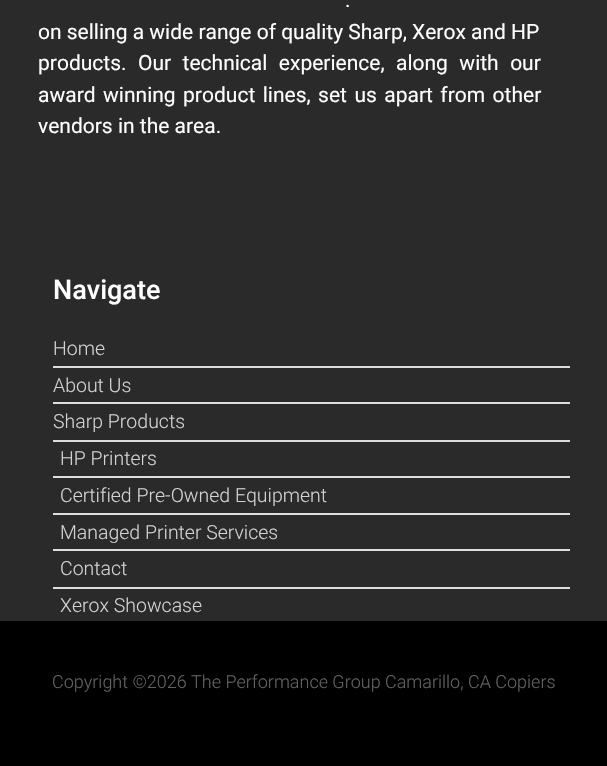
void draw(SkCanvas* canvas) {
	SkPaint paint;
	paint.setAntiAlias(true);
	auto spacedText = [&](const char* s, float x, float y, const SkFont& font, const SkPaint& ink, float letter, float word) {
		std::vector<SkGlyphID> glyphs(font.countText(s, strlen(s), SkTextEncoding::kUTF8));
		std::vector<float> xs(glyphs.size());
		font.textToGlyphs(s, strlen(s), SkTextEncoding::kUTF8, glyphs);
		font.getXPos(glyphs, xs, x);
		float extra = 0;
		for (size_t i = 0; i < glyphs.size(); i++) {
			xs[i] += extra;
			extra += letter + word * (glyphs[i] == font.unicharToGlyph(' '));
		}
		canvas->drawTextBlob(SkTextBlob::MakeFromPosHGlyphs(glyphs, xs, y, font), 0, 0, ink);
	};
	canvas->clear(0xff2a2a2a);
	SkFont f1(fontMgr->matchFamilyStyle("Roboto", SkFontStyle::Normal()), 21);
	f1.setSubpixel(true);
	paint.setColor(0xffffffff);
	spacedText(".", 345, 7, f1, paint, 0, 2);
	canvas->drawString("on selling a wide range of quality Sharp, Xerox and HP", 38, 39, f1, paint);
	spacedText("products. Our technical experience, along with our", 38, 70, f1, paint, 0, 6.25);
	spacedText("award winning product lines, set us apart from other", 38, 102, f1, paint, 0, 2.25);
	canvas->drawString("vendors in the area.", 38, 133, f1, paint);
	SkFont f2(fontMgr->matchFamilyStyle("Roboto", SkFontStyle(500, SkFontStyle::kNormal_Width, SkFontStyle::kUpright_Slant)), 27);
	f2.setSubpixel(true);
	canvas->drawString("Navigate", 53, 299, f2, paint);
	SkFont f3(fontMgr->matchFamilyStyle("Roboto", SkFontStyle(300, SkFontStyle::kNormal_Width, SkFontStyle::kUpright_Slant)), 19.5);
	f3.setSubpixel(true);
	paint.setColor(0xffd2d2d2);
	canvas->drawString("Home", 53, 355, f3, paint);
	paint.setColor(0xffdddddd);
	canvas->drawRect(SkRect::MakeXYWH(53, 366, 517, 2), paint);
	paint.setColor(0xffd2d2d2);
	canvas->drawString("About Us", 53, 392, f3, paint);
	paint.setColor(0xffdddddd);
	canvas->drawRect(SkRect::MakeXYWH(53, 402, 517, 2), paint);
	paint.setColor(0xffd2d2d2);
	canvas->drawString("Sharp Products", 53, 428, f3, paint);
	paint.setColor(0xffdddddd);
	canvas->drawRect(SkRect::MakeXYWH(53, 440, 517, 2), paint);
	paint.setColor(0xffd2d2d2);
	canvas->drawString("HP Printers", 60, 465, f3, paint);
	paint.setColor(0xffdddddd);
	canvas->drawRect(SkRect::MakeXYWH(53, 476, 517, 2), paint);
	paint.setColor(0xffd2d2d2);
	canvas->drawString("Certified Pre-Owned Equipment", 60, 502, f3, paint);
	paint.setColor(0xffdddddd);
	canvas->drawRect(SkRect::MakeXYWH(53, 513, 517, 2), paint);
	paint.setColor(0xffd2d2d2);
	canvas->drawString("Managed Printer Services", 60, 539, f3, paint);
	paint.setColor(0xffdddddd);
	canvas->drawRect(SkRect::MakeXYWH(53, 549, 517, 2), paint);
	paint.setColor(0xffd2d2d2);
	canvas->drawString("Contact", 60, 575, f3, paint);
	paint.setColor(0xffdddddd);
	canvas->drawRect(SkRect::MakeXYWH(53, 587, 517, 2), paint);
	paint.setColor(0xffd2d2d2);
	canvas->drawString("Xerox Showcase", 60, 612, f3, paint);
	paint.setColor(0xff000000);
	canvas->drawRect(SkRect::MakeXYWH(0, 621, 607, 145), paint);
	SkFont f4(fontMgr->matchFamilyStyle("Roboto", SkFontStyle(300, SkFontStyle::kNormal_Width, SkFontStyle::kUpright_Slant)), 18);
	f4.setSubpixel(true);
	paint.setColor(0xff636363);
	canvas->drawString("Copyright ©2026 The Performance Group Camarillo, CA Copiers", 52, 688, f4, paint);
}
